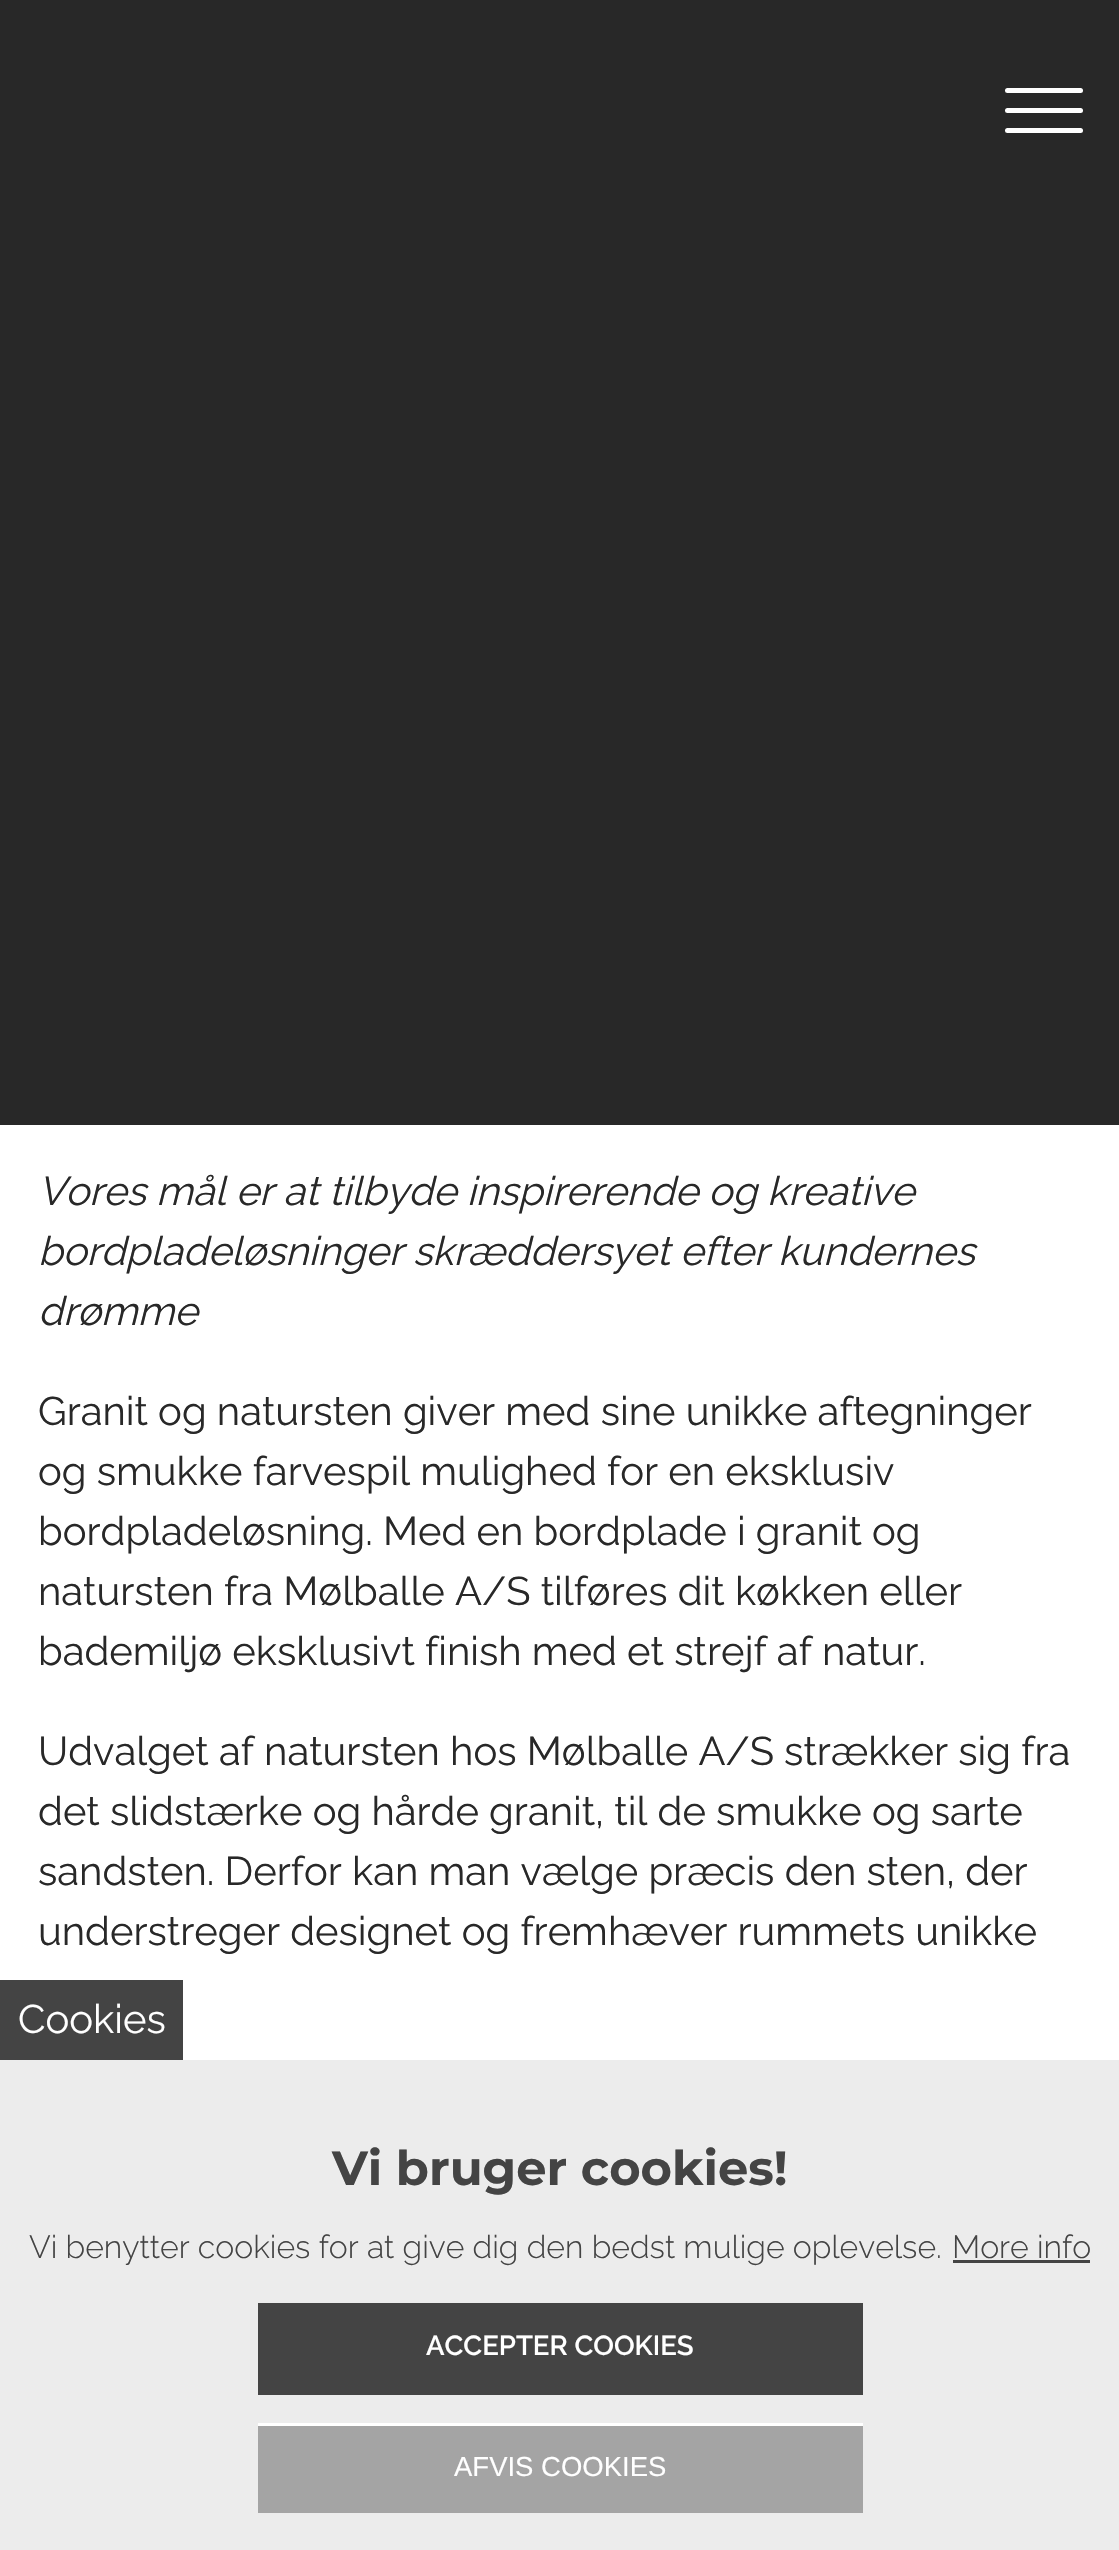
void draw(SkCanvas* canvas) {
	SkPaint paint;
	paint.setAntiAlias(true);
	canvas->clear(0xffffffff);
	paint.setColor(0xff282828);
	canvas->drawRect(SkRect::MakeXYWH(0, 0, 1119, 1125), paint);
	paint.setColor(0xffffffff);
	canvas->drawRoundRect(SkRect::MakeXYWH(1005, 108, 78, 5), 2.5, 2.5, paint);
	canvas->drawRoundRect(SkRect::MakeXYWH(1005, 88, 78, 5), 2.5, 2.5, paint);
	canvas->drawRoundRect(SkRect::MakeXYWH(1005, 128, 78, 5), 2.5, 2.5, paint);
	SkFont f1(fontMgr->matchFamilyStyle("Raleway", SkFontStyle::Italic()), 40);
	f1.setSubpixel(true);
	paint.setColor(0xff282828);
	canvas->drawString("Vores mål er at tilbyde inspirerende og kreative", 38, 1205, f1, paint);
	canvas->drawString("bordpladeløsninger skræddersyet efter kundernes", 38, 1265, f1, paint);
	canvas->drawString("drømme", 38, 1325, f1, paint);
	SkFont f2(fontMgr->matchFamilyStyle("Raleway", SkFontStyle::Normal()), 40);
	f2.setSubpixel(true);
	canvas->drawString("Granit og natursten giver med sine unikke aftegninger", 38, 1425, f2, paint);
	canvas->drawString("og smukke farvespil mulighed for en eksklusiv", 38, 1485, f2, paint);
	canvas->drawString("bordpladeløsning. Med en bordplade i granit og", 38, 1545, f2, paint);
	canvas->drawString("natursten fra Mølballe A/S tilføres dit køkken eller", 38, 1605, f2, paint);
	canvas->drawString("bademiljø eksklusivt finish med et strejf af natur.", 38, 1665, f2, paint);
	canvas->drawString("Udvalget af natursten hos Mølballe A/S strækker sig fra", 38, 1765, f2, paint);
	canvas->drawString("det slidstærke og hårde granit, til de smukke og sarte", 38, 1825, f2, paint);
	canvas->drawString("sandsten. Derfor kan man vælge præcis den sten, der", 38, 1885, f2, paint);
	canvas->drawString("understreger designet og fremhæver rummets unikke", 38, 1945, f2, paint);
	paint.setColor(0xffececec);
	canvas->drawRect(SkRect::MakeXYWH(0, 2060, 1119, 490), paint);
	paint.setColor(0xff444444);
	canvas->drawRect(SkRect::MakeXYWH(0, 1980, 183, 80), paint);
	paint.setColor(0xffffffff);
	canvas->drawString("Cookies", 18, 2033, f2, paint);
	SkFont f3(fontMgr->matchFamilyStyle("Montserrat", SkFontStyle::Bold()), 48);
	f3.setSubpixel(true);
	paint.setColor(0xff444444);
	canvas->drawString("Vi bruger cookies!", 332, 2185, f3, paint);
	SkFont f4(fontMgr->matchFamilyStyle("Raleway", SkFontStyle(300, SkFontStyle::kNormal_Width, SkFontStyle::kUpright_Slant)), 32);
	f4.setSubpixel(true);
	canvas->drawString("Vi benytter cookies for at give dig den bedst mulige oplevelse.", 29, 2258, f4, paint);
	canvas->drawString("More info", 952, 2258, f4, paint);
	canvas->drawRect(SkRect::MakeXYWH(953, 2260, 137, 3), paint);
	canvas->drawRect(SkRect::MakeXYWH(258, 2303, 605, 92), paint);
	SkFont f5(fontMgr->matchFamilyStyle("Raleway", SkFontStyle(600, SkFontStyle::kNormal_Width, SkFontStyle::kUpright_Slant)), 27.5);
	f5.setSubpixel(true);
	paint.setColor(0xffffffff);
	canvas->drawString("ACCEPTER COOKIES", 426, 2355, f5, paint);
	paint.setColor(0xffa4a4a4);
	canvas->drawRect(SkRect::MakeXYWH(258, 2426, 605, 87), paint);
	paint.setColor(0xffffffff);
	canvas->drawRect(SkRect::MakeXYWH(258, 2423, 605, 3), paint);
	SkFont f6(fontMgr->matchFamilyStyle("Liberation Sans", SkFontStyle::Normal()), 27.5);
	f6.setSubpixel(true);
	canvas->drawString("AFVIS COOKIES", 454, 2476, f6, paint);
}
